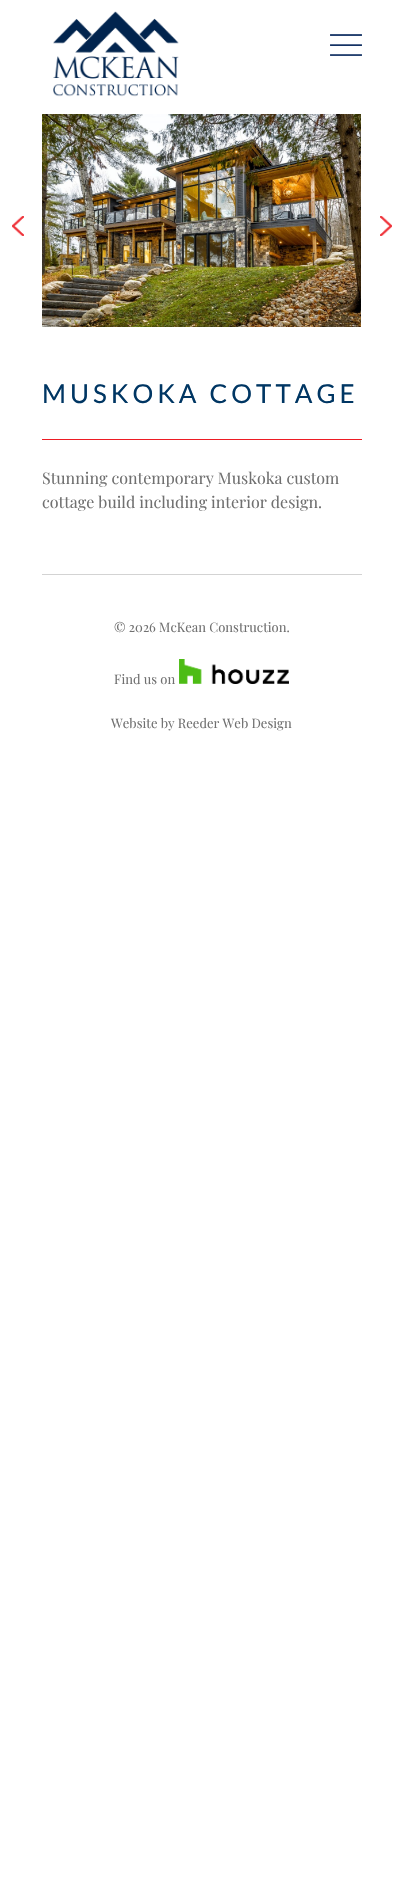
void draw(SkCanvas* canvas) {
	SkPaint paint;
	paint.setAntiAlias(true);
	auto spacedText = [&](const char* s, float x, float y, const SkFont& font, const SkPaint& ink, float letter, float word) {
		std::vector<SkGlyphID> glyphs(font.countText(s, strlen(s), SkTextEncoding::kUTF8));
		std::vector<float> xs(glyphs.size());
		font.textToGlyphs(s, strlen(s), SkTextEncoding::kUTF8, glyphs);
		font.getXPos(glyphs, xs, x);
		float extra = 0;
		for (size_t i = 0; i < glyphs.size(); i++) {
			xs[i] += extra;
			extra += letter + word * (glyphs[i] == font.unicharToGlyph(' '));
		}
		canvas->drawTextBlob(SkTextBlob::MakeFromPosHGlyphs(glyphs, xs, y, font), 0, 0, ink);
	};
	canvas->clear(0xffffffff);
	canvas->drawImageRect(SkImages::DeferredFromEncodedData(SkData::MakeFromFileName("img1.png")), SkRect::MakeXYWH(53, 11, 126, 86), SkSamplingOptions());
	canvas->drawImageRect(SkImages::DeferredFromEncodedData(SkData::MakeFromFileName("img2.png")), SkRect::MakeXYWH(330, 34, 32, 22), SkSamplingOptions());
	canvas->drawImageRect(SkImages::DeferredFromEncodedData(SkData::MakeFromFileName("img3.png")), SkRect::MakeXYWH(12, 216, 12, 20), SkSamplingOptions());
	canvas->drawImageRect(SkImages::DeferredFromEncodedData(SkData::MakeFromFileName("img4.png")), SkRect::MakeXYWH(42, 114, 319, 213), SkSamplingOptions());
	canvas->drawImageRect(SkImages::DeferredFromEncodedData(SkData::MakeFromFileName("img5.png")), SkRect::MakeXYWH(380, 216, 12, 20), SkSamplingOptions());
	SkFont f1(fontMgr->matchFamilyStyle("Lato", SkFontStyle::Normal()), 26);
	f1.setSubpixel(true);
	paint.setColor(0xff003663);
	spacedText("MUSKOKA COTTAGE", 42, 403, f1, paint, 4, 0);
	paint.setColor(0xffed1c24);
	canvas->drawRect(SkRect::MakeXYWH(42, 439, 320, 1), paint);
	SkFont f2(fontMgr->matchFamilyStyle("Playfair Display", SkFontStyle::Normal()), 16);
	f2.setSubpixel(true);
	paint.setColor(0xff707070);
	canvas->drawString("Stunning contemporary Muskoka custom", 42, 484, f2, paint);
	canvas->drawString("cottage build including interior design.", 42, 508, f2, paint);
	paint.setColor(0xffd3d3d3);
	canvas->drawRect(SkRect::MakeXYWH(42, 574, 320, 1), paint);
	SkFont f3(fontMgr->matchFamilyStyle("Playfair Display", SkFontStyle::Normal()), 13);
	f3.setSubpixel(true);
	paint.setColor(0xff707070);
	canvas->drawString("© 2026 McKean Construction.", 114, 632, f3, paint);
	canvas->drawString("Find us on", 114, 684, f3, paint);
	canvas->drawImageRect(SkImages::DeferredFromEncodedData(SkData::MakeFromFileName("img6.png")), SkRect::MakeXYWH(179, 659, 110, 25), SkSamplingOptions());
	canvas->drawString("Website by Reeder Web Design", 111, 728, f3, paint);
}
